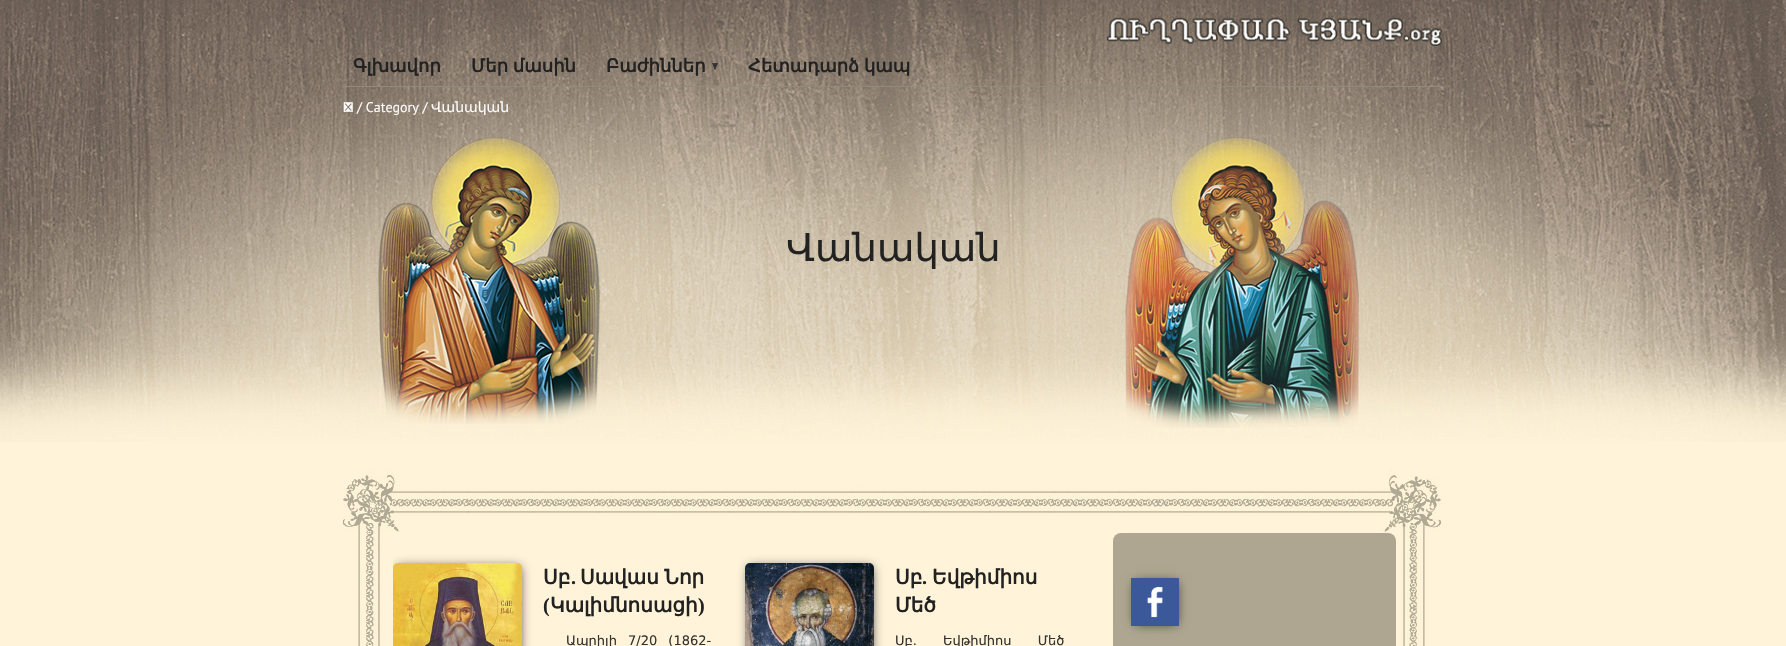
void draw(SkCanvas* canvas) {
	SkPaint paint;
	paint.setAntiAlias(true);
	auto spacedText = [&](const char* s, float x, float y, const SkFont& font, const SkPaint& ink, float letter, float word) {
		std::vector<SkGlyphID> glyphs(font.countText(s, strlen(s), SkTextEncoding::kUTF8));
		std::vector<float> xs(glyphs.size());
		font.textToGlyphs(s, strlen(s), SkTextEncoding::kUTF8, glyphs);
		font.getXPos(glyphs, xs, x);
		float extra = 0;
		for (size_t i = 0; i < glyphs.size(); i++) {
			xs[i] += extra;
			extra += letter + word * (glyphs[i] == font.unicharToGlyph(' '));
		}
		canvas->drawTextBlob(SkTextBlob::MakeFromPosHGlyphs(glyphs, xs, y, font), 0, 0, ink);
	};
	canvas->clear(0xfffff3d9);
	canvas->drawImageRect(SkImages::DeferredFromEncodedData(SkData::MakeFromFileName("img1.png")), SkRect::MakeXYWH(0, 0, 1786, 442), SkSamplingOptions());
	canvas->drawImageRect(SkImages::DeferredFromEncodedData(SkData::MakeFromFileName("img2.png")), SkRect::MakeXYWH(1106, 17, 337, 29), SkSamplingOptions());
	paint.setColor(0xff918b7d);
	canvas->drawRect(SkRect::MakeXYWH(343, 86, 1100, 1), paint);
	SkFont f1(fontMgr->matchFamilyStyle("DejaVu Sans", SkFontStyle::Bold()), 18);
	f1.setSubpixel(true);
	paint.setColor(0xff222222);
	canvas->drawString("Գլխավոր", 353, 72, f1, paint);
	spacedText("Մեր մասին", 471, 72, f1, paint, 0, -1);
	canvas->drawString("Բաժիններ", 606, 72, f1, paint);
	canvas->drawImageRect(SkImages::DeferredFromEncodedData(SkData::MakeFromFileName("img3.png")), SkRect::MakeXYWH(712, 63, 6, 7), SkSamplingOptions());
	spacedText("Հետադարձ կապ", 748, 72, f1, paint, 0, -1);
	canvas->drawImageRect(SkImages::DeferredFromEncodedData(SkData::MakeFromFileName("img4.png")), SkRect::MakeXYWH(343, 102, 10, 10), SkSamplingOptions());
	SkFont f2(fontMgr->matchFamilyStyle("PT Sans", SkFontStyle::Normal()), 14);
	f2.setSubpixel(true);
	paint.setColor(0xfffcfcfc);
	canvas->drawString("/ Category /", 357, 112, f2, paint);
	SkFont f3(fontMgr->matchFamilyStyle("DejaVu Sans", SkFontStyle::Normal()), 14);
	f3.setSubpixel(true);
	canvas->drawString("Վանական", 431, 112, f3, paint);
	canvas->drawImageRect(SkImages::DeferredFromEncodedData(SkData::MakeFromFileName("img5.png")), SkRect::MakeXYWH(378, 137, 222, 287), SkSamplingOptions());
	SkFont f4(fontMgr->matchFamilyStyle("DejaVu Sans", SkFontStyle::Normal()), 38.5);
	f4.setSubpixel(true);
	paint.setColor(0xff222222);
	canvas->drawString("Վանական", 786, 261, f4, paint);
	canvas->drawImageRect(SkImages::DeferredFromEncodedData(SkData::MakeFromFileName("img6.png")), SkRect::MakeXYWH(1125, 137, 234, 291), SkSamplingOptions());
	canvas->drawImageRect(SkImages::DeferredFromEncodedData(SkData::MakeFromFileName("img7.png")), SkRect::MakeXYWH(358, 533, 1067, 113), SkSamplingOptions());
	canvas->drawImageRect(SkImages::DeferredFromEncodedData(SkData::MakeFromFileName("img8.png")), SkRect::MakeXYWH(343, 468, 1100, 65), SkSamplingOptions());
	canvas->save();
	canvas->clipRect(SkRect::MakeXYWH(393, 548, 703, 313));
	paint.setColor(0xff323232);
	paint.setMaskFilter(SkMaskFilter::MakeBlur(kNormal_SkBlurStyle, 5.5));
	canvas->drawRoundRect(SkRect::MakeXYWH(397, 567, 123, 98), 2, 2, paint);
	paint.setMaskFilter(nullptr);
	canvas->restore();
	canvas->drawImageRect(SkImages::DeferredFromEncodedData(SkData::MakeFromFileName("img9.png")), SkRect::MakeXYWH(393, 563, 129, 83), SkSamplingOptions());
	SkFont f5(fontMgr->matchFamilyStyle("DejaVu Sans", SkFontStyle::Bold()), 20);
	f5.setSubpixel(true);
	paint.setColor(0xff222222);
	canvas->drawString("Սբ", 543, 584, f5, paint);
	SkFont f6(fontMgr->matchFamilyStyle("Liberation Serif", SkFontStyle::Bold()), 20);
	f6.setSubpixel(true);
	canvas->drawString(".", 571, 584, f6, paint);
	spacedText("Սավաս Նոր", 580, 584, f5, paint, 0, -1);
	canvas->drawString("(", 543, 612, f6, paint);
	canvas->drawString("Կալիմնոսացի", 550, 612, f5, paint);
	canvas->drawString(")", 698, 612, f6, paint);
	SkFont f7(fontMgr->matchFamilyStyle("DejaVu Sans", SkFontStyle::Normal()), 13);
	f7.setSubpixel(true);
	paint.setColor(0xff333333);
	spacedText("Ապրիլի 7/20 (1862-", 566, 645, f7, paint, 0, 7);
	paint.setColor(0xff323232);
	paint.setMaskFilter(SkMaskFilter::MakeBlur(kNormal_SkBlurStyle, 5.5));
	canvas->drawRoundRect(SkRect::MakeXYWH(749, 567, 123, 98), 2, 2, paint);
	paint.setMaskFilter(nullptr);
	canvas->drawImageRect(SkImages::DeferredFromEncodedData(SkData::MakeFromFileName("img10.png")), SkRect::MakeXYWH(745, 563, 129, 83), SkSamplingOptions());
	paint.setColor(0xff222222);
	canvas->drawString("Սբ", 895, 584, f5, paint);
	canvas->drawString(".", 922, 584, f6, paint);
	canvas->drawString("Եվթիմիոս", 932, 584, f5, paint);
	canvas->drawString("Մեծ", 895, 612, f5, paint);
	paint.setColor(0xff333333);
	spacedText("Սբ. Եվթիմիոս Մեծ", 895, 645, f7, paint, 0, 22);
	paint.setColor(0xffaea690);
	canvas->drawRoundRect(SkRect::MakeXYWH(1113, 533, 283, 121), 8, 8, paint);
	paint.setColor(0xff323232);
	paint.setMaskFilter(SkMaskFilter::MakeBlur(kNormal_SkBlurStyle, 5.5));
	canvas->drawRect(SkRect::MakeXYWH(1135, 582, 42, 42), paint);
	paint.setMaskFilter(nullptr);
	canvas->drawImageRect(SkImages::DeferredFromEncodedData(SkData::MakeFromFileName("img11.png")), SkRect::MakeXYWH(1131, 578, 48, 48), SkSamplingOptions());
}
